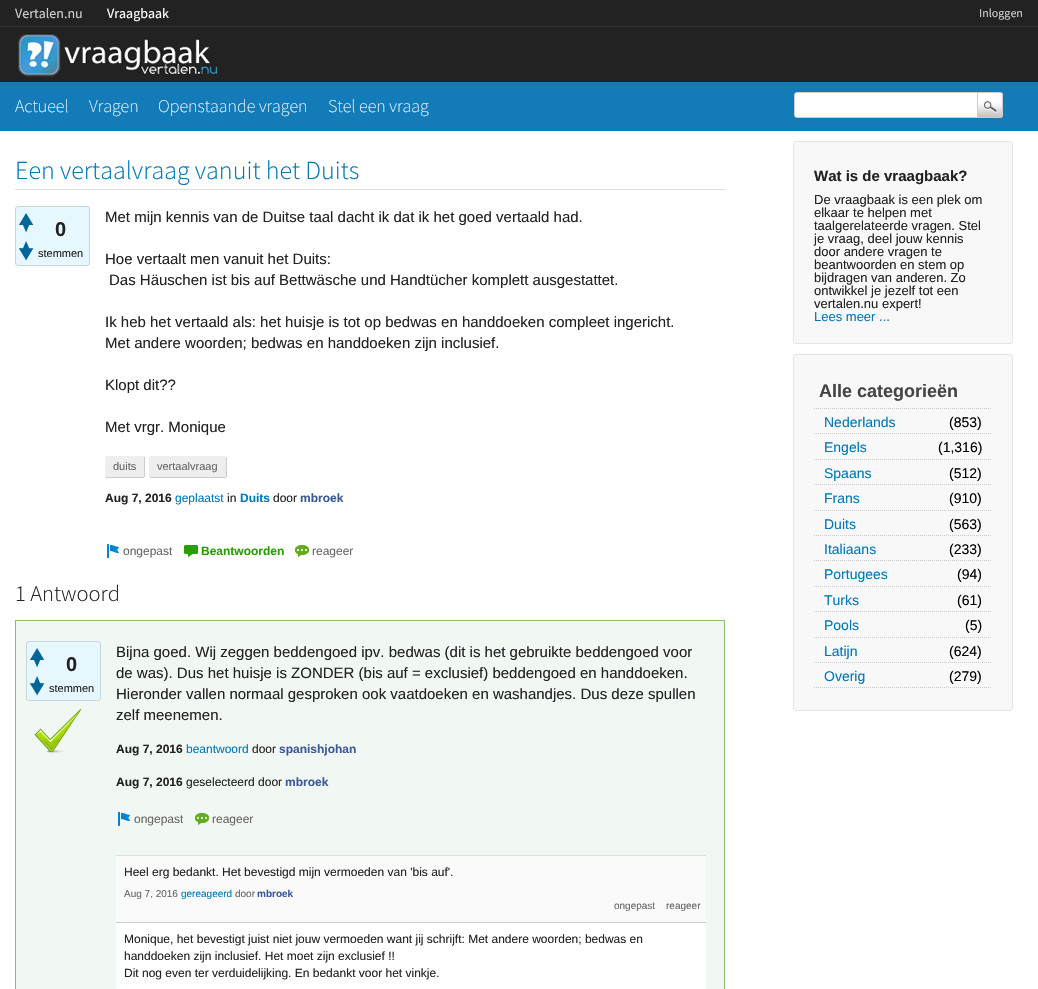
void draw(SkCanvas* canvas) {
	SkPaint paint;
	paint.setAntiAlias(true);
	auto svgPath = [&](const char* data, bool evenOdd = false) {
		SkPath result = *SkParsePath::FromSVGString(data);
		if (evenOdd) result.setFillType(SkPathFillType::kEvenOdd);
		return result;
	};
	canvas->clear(0xffffffff);
	paint.setColor(0xff222222);
	canvas->drawRect(SkRect::MakeXYWH(0, 0, 1038, 82), paint);
	paint.setColor(0xff333333);
	canvas->drawRect(SkRect::MakeXYWH(0, 26, 1038, 1), paint);
	SkFont f1(fontMgr->matchFamilyStyle("Source Sans Pro", SkFontStyle::Normal()), 14);
	f1.setSubpixel(true);
	paint.setColor(0xffcccccc);
	canvas->drawString("Vertalen.nu", 15, 18, f1, paint);
	paint.setColor(0xffffffff);
	canvas->drawString("Vraagbaak", 107, 18, f1, paint);
	SkFont f2(fontMgr->matchFamilyStyle("Source Sans Pro", SkFontStyle::Normal()), 12);
	f2.setSubpixel(true);
	paint.setColor(0xffcccccc);
	canvas->drawString("Inloggen", 979, 17, f2, paint);
	canvas->drawImageRect(SkImages::DeferredFromEncodedData(SkData::MakeFromFileName("img1.png")), SkRect::MakeXYWH(18, 33, 200, 44), SkSamplingOptions());
	paint.setColor(0xff137cb8);
	canvas->drawRect(SkRect::MakeXYWH(0, 82, 1038, 49), paint);
	SkFont f3(fontMgr->matchFamilyStyle("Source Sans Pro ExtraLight", SkFontStyle(200, SkFontStyle::kNormal_Width, SkFontStyle::kUpright_Slant)), 18);
	f3.setSubpixel(true);
	paint.setColor(0xffffffff);
	canvas->drawString("Actueel", 15, 112, f3, paint);
	canvas->drawString("Vragen", 89, 112, f3, paint);
	canvas->drawString("Openstaande vragen", 158, 112, f3, paint);
	canvas->drawString("Stel een vraag", 328, 112, f3, paint);
	canvas->drawPath(svgPath("M797 92.5H977.5V117.5H797C795.5 117.5 794.5 116.5 794.5 115V95C794.5 93.5 795.5 92.5 797 92.5Z"), paint);
	paint.setStroke(true);
	paint.setStrokeWidth(1);
	paint.setColor(0xffcccccc);
	canvas->drawPath(svgPath("M797 92.5H977.5V117.5H797C795.5 117.5 794.5 116.5 794.5 115V95C794.5 93.5 795.5 92.5 797 92.5Z"), paint);
	canvas->drawImageRect(SkImages::DeferredFromEncodedData(SkData::MakeFromFileName("img2.png")), SkRect::MakeXYWH(978, 93, 25, 25), SkSamplingOptions());
	canvas->drawPath(svgPath("M977.5 92.5H1000C1001.5 92.5 1002.5 93.5 1002.5 95V115C1002.5 116.5 1001.5 117.5 1000 117.5H977.5Z"), paint);
	paint.setStroke(false);
	paint.setColor(0xffdddddd);
	canvas->drawRect(SkRect::MakeXYWH(15, 189, 710, 1), paint);
	SkFont f4(fontMgr->matchFamilyStyle("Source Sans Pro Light", SkFontStyle(300, SkFontStyle::kNormal_Width, SkFontStyle::kUpright_Slant)), 26);
	f4.setSubpixel(true);
	paint.setColor(0xff0179b5);
	canvas->drawString("Een vertaalvraag vanuit het Duits", 15, 179, f4, paint);
	paint.setColor(0xffe7f7ff);
	canvas->drawRoundRect(SkRect::MakeXYWH(15.5, 206.5, 74, 59), 2.5, 2.5, paint);
	paint.setStroke(true);
	paint.setColor(0xffc5d6df);
	canvas->drawRoundRect(SkRect::MakeXYWH(15.5, 206.5, 74, 59), 2.5, 2.5, paint);
	canvas->drawImageRect(SkImages::DeferredFromEncodedData(SkData::MakeFromFileName("img3.png")), SkRect::MakeXYWH(19, 213, 15, 20), SkSamplingOptions());
	canvas->drawImageRect(SkImages::DeferredFromEncodedData(SkData::MakeFromFileName("img4.png")), SkRect::MakeXYWH(18, 241, 16, 20), SkSamplingOptions());
	SkFont f5(fontMgr->matchFamilyStyle("Liberation Sans", SkFontStyle::Bold()), 20);
	f5.setSubpixel(true);
	paint.setStroke(false);
	paint.setColor(0xff222222);
	canvas->drawString("0", 55, 236, f5, paint);
	SkFont f6(fontMgr->matchFamilyStyle("Liberation Sans", SkFontStyle::Normal()), 11);
	f6.setSubpixel(true);
	canvas->drawString("stemmen", 38, 257, f6, paint);
	SkFont f7(fontMgr->matchFamilyStyle("Liberation Sans", SkFontStyle::Normal()), 15);
	f7.setSubpixel(true);
	canvas->drawString("Met mijn kennis van de Duitse taal dacht ik dat ik het goed vertaald had.", 105, 222, f7, paint);
	canvas->drawString("Hoe vertaalt men vanuit het Duits:", 105, 264, f7, paint);
	canvas->drawString("Das Häuschen ist bis auf Bettwäsche und Handtücher komplett ausgestattet.", 109, 285, f7, paint);
	canvas->drawString("Ik heb het vertaald als: het huisje is tot op bedwas en handdoeken compleet ingericht.", 105, 327, f7, paint);
	canvas->drawString("Met andere woorden; bedwas en handdoeken zijn inclusief.", 105, 348, f7, paint);
	canvas->drawString("Klopt dit?\077", 105, 390, f7, paint);
	canvas->drawString("Met vrgr. Monique", 105, 432, f7, paint);
	paint.setColor(0xffeeeeee);
	canvas->drawRoundRect(SkRect::MakeXYWH(105, 456, 40, 22), 2, 2, paint);
	paint.setColor(0xffcccccc);
	canvas->drawRect(SkRect::MakeXYWH(144, 457, 1, 20), paint);
	canvas->drawRect(SkRect::MakeXYWH(106, 477, 38, 1), paint);
	paint.setColor(0xff666666);
	canvas->drawString("duits", 113, 470, f6, paint);
	paint.setColor(0xffeeeeee);
	canvas->drawRoundRect(SkRect::MakeXYWH(149, 456, 78, 22), 2, 2, paint);
	paint.setColor(0xffcccccc);
	canvas->drawRect(SkRect::MakeXYWH(226, 457, 1, 20), paint);
	canvas->drawRect(SkRect::MakeXYWH(150, 477, 76, 1), paint);
	paint.setColor(0xff666666);
	canvas->drawString("vertaalvraag", 157, 470, f6, paint);
	SkFont f8(fontMgr->matchFamilyStyle("Liberation Sans", SkFontStyle::Bold()), 12);
	f8.setSubpixel(true);
	paint.setColor(0xff222222);
	canvas->drawString("Aug 7, 2016", 105, 502, f8, paint);
	SkFont f9(fontMgr->matchFamilyStyle("Liberation Sans", SkFontStyle::Normal()), 12);
	f9.setSubpixel(true);
	paint.setColor(0xff0179b5);
	canvas->drawString("geplaatst", 175, 502, f9, paint);
	paint.setColor(0xff222222);
	canvas->drawString("in", 227, 502, f9, paint);
	paint.setColor(0xff0179b5);
	canvas->drawString("Duits", 240, 502, f8, paint);
	paint.setColor(0xff222222);
	canvas->drawString("door", 273, 502, f9, paint);
	paint.setColor(0xff3b5998);
	canvas->drawString("mbroek", 300, 502, f8, paint);
	canvas->drawImageRect(SkImages::DeferredFromEncodedData(SkData::MakeFromFileName("img5.png")), SkRect::MakeXYWH(107, 544, 12, 14), SkSamplingOptions());
	canvas->save();
	canvas->clipRect(SkRect::MakeXYWH(105, 539, 67, 24));
	paint.setColor(0xff666666);
	canvas->drawString("ongepast", 123, 555, f9, paint);
	canvas->restore();
	canvas->drawImageRect(SkImages::DeferredFromEncodedData(SkData::MakeFromFileName("img6.png")), SkRect::MakeXYWH(183, 545, 15, 12), SkSamplingOptions());
	paint.setColor(0xff289e00);
	canvas->drawString("Beantwoorden", 201, 555, f8, paint);
	canvas->drawImageRect(SkImages::DeferredFromEncodedData(SkData::MakeFromFileName("img7.png")), SkRect::MakeXYWH(294, 545, 15, 12), SkSamplingOptions());
	paint.setColor(0xff666666);
	canvas->drawString("reageer", 312, 555, f9, paint);
	SkFont f10(fontMgr->matchFamilyStyle("Source Sans Pro Light", SkFontStyle(300, SkFontStyle::kNormal_Width, SkFontStyle::kUpright_Slant)), 22.5);
	f10.setSubpixel(true);
	paint.setColor(0xff222222);
	canvas->drawString("1 Antwoord", 15, 601, f10, paint);
	paint.setColor(0xfff1f7f3);
	canvas->drawRect(SkRect::MakeXYWH(15.5, 620.5, 709, 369), paint);
	paint.setStroke(true);
	paint.setColor(0xff89bf65);
	canvas->drawRect(SkRect::MakeXYWH(15.5, 620.5, 709, 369), paint);
	paint.setStroke(false);
	paint.setColor(0xffe7f7ff);
	canvas->drawRoundRect(SkRect::MakeXYWH(26.5, 641.5, 74, 59), 2.5, 2.5, paint);
	paint.setStroke(true);
	paint.setColor(0xffc5d6df);
	canvas->drawRoundRect(SkRect::MakeXYWH(26.5, 641.5, 74, 59), 2.5, 2.5, paint);
	canvas->drawImageRect(SkImages::DeferredFromEncodedData(SkData::MakeFromFileName("img3.png")), SkRect::MakeXYWH(30, 648, 15, 20), SkSamplingOptions());
	canvas->drawImageRect(SkImages::DeferredFromEncodedData(SkData::MakeFromFileName("img4.png")), SkRect::MakeXYWH(29, 676, 16, 20), SkSamplingOptions());
	paint.setStroke(false);
	paint.setColor(0xff222222);
	canvas->drawString("0", 66, 671, f5, paint);
	canvas->drawString("stemmen", 49, 692, f6, paint);
	canvas->drawString("Bijna goed. Wij zeggen beddengoed ipv. bedwas (dit is het gebruikte beddengoed voor", 116, 657, f7, paint);
	canvas->drawString("de was). Dus het huisje is ZONDER (bis auf = exclusief) beddengoed en handdoeken.", 116, 678, f7, paint);
	canvas->drawString("Hieronder vallen normaal gesproken ook vaatdoeken en washandjes. Dus deze spullen", 116, 699, f7, paint);
	canvas->drawString("zelf meenemen.", 116, 720, f7, paint);
	canvas->drawImageRect(SkImages::DeferredFromEncodedData(SkData::MakeFromFileName("img8.png")), SkRect::MakeXYWH(34, 709, 47, 44), SkSamplingOptions());
	canvas->drawString("Aug 7, 2016", 116, 753, f8, paint);
	paint.setColor(0xff0179b5);
	canvas->drawString("beantwoord", 186, 753, f9, paint);
	paint.setColor(0xff222222);
	canvas->drawString("door", 252, 753, f9, paint);
	paint.setColor(0xff3b5998);
	canvas->drawString("spanishjohan", 279, 753, f8, paint);
	paint.setColor(0xff222222);
	canvas->drawString("Aug 7, 2016", 116, 786, f8, paint);
	canvas->drawString("geselecteerd door", 186, 786, f9, paint);
	paint.setColor(0xff3b5998);
	canvas->drawString("mbroek", 285, 786, f8, paint);
	canvas->drawImageRect(SkImages::DeferredFromEncodedData(SkData::MakeFromFileName("img9.png")), SkRect::MakeXYWH(118, 812, 12, 14), SkSamplingOptions());
	canvas->save();
	canvas->clipRect(SkRect::MakeXYWH(116, 807, 67, 24));
	paint.setColor(0xff666666);
	canvas->drawString("ongepast", 134, 823, f9, paint);
	canvas->restore();
	canvas->drawImageRect(SkImages::DeferredFromEncodedData(SkData::MakeFromFileName("img10.png")), SkRect::MakeXYWH(194, 813, 15, 12), SkSamplingOptions());
	canvas->drawString("reageer", 212, 823, f9, paint);
	paint.setColor(0xffdddddd);
	canvas->drawRect(SkRect::MakeXYWH(116, 855, 590, 1), paint);
	paint.setColor(0xfffafafa);
	canvas->drawRect(SkRect::MakeXYWH(116, 856, 590, 66), paint);
	paint.setColor(0xffcccccc);
	canvas->drawRect(SkRect::MakeXYWH(116, 922, 590, 1), paint);
	paint.setColor(0xff222222);
	canvas->drawString("Heel erg bedankt. Het bevestigd mijn vermoeden van 'bis auf'.", 124, 876, f9, paint);
	SkFont f11(fontMgr->matchFamilyStyle("Liberation Sans", SkFontStyle::Normal()), 10);
	f11.setSubpixel(true);
	paint.setColor(0xff666666);
	canvas->drawString("Aug 7, 2016", 124, 897, f11, paint);
	paint.setColor(0xff0179b5);
	canvas->drawString("gereageerd", 181, 897, f11, paint);
	paint.setColor(0xff666666);
	canvas->drawString("door", 235, 897, f11, paint);
	SkFont f12(fontMgr->matchFamilyStyle("Liberation Sans", SkFontStyle::Bold()), 10);
	f12.setSubpixel(true);
	paint.setColor(0xff3b5998);
	canvas->drawString("mbroek", 257, 897, f12, paint);
	paint.setColor(0xff666666);
	canvas->drawString("ongepast", 614, 909, f11, paint);
	canvas->drawString("reageer", 666, 909, f11, paint);
	paint.setColor(0xffffffff);
	canvas->drawRect(SkRect::MakeXYWH(116, 923, 590, 66), paint);
	paint.setColor(0xff222222);
	canvas->drawString("Monique, het bevestigt juist niet jouw vermoeden want jij schrijft: Met andere woorden; bedwas en", 124, 943, f9, paint);
	canvas->drawString("handdoeken zijn inclusief. Het moet zijn exclusief !!", 124, 960, f9, paint);
	canvas->drawString("Dit nog even ter verduidelijking. En bedankt voor het vinkje.", 124, 977, f9, paint);
	paint.setColor(0xfff8f8f8);
	canvas->drawRoundRect(SkRect::MakeXYWH(793.5, 141.5, 219, 202), 2.5, 2.5, paint);
	paint.setStroke(true);
	paint.setColor(0xffe5e5e5);
	canvas->drawRoundRect(SkRect::MakeXYWH(793.5, 141.5, 219, 202), 2.5, 2.5, paint);
	SkFont f13(fontMgr->matchFamilyStyle("Liberation Sans", SkFontStyle::Bold()), 15);
	f13.setSubpixel(true);
	paint.setStroke(false);
	paint.setColor(0xff222222);
	canvas->drawString("Wat is de vraagbaak?", 814, 181, f13, paint);
	SkFont f14(fontMgr->matchFamilyStyle("Liberation Sans", SkFontStyle::Normal()), 13);
	f14.setSubpixel(true);
	canvas->drawString("De vraagbaak is een plek om", 814, 204, f14, paint);
	canvas->drawString("elkaar te helpen met", 814, 217, f14, paint);
	canvas->drawString("taalgerelateerde vragen. Stel", 814, 230, f14, paint);
	canvas->drawString("je vraag, deel jouw kennis", 814, 243, f14, paint);
	canvas->drawString("door andere vragen te", 814, 256, f14, paint);
	canvas->drawString("beantwoorden en stem op", 814, 269, f14, paint);
	canvas->drawString("bijdragen van anderen. Zo", 814, 282, f14, paint);
	canvas->drawString("ontwikkel je jezelf tot een", 814, 295, f14, paint);
	canvas->drawString("vertalen.nu expert!", 814, 308, f14, paint);
	paint.setColor(0xff0179b5);
	canvas->drawString("Lees meer ...", 814, 321, f14, paint);
	paint.setColor(0xfff8f8f8);
	canvas->drawRoundRect(SkRect::MakeXYWH(793.5, 354.5, 219, 356), 2.5, 2.5, paint);
	paint.setStroke(true);
	paint.setColor(0xffe5e5e5);
	canvas->drawRoundRect(SkRect::MakeXYWH(793.5, 354.5, 219, 356), 2.5, 2.5, paint);
	paint.setColor(0xffcccccc);
	paint.setPathEffect(SkDashPathEffect::Make({{1, 1}}, 0));
	canvas->drawPath(svgPath("M814 408.5H992"), paint);
	paint.setPathEffect(nullptr);
	SkFont f15(fontMgr->matchFamilyStyle("Liberation Sans", SkFontStyle::Bold()), 18);
	f15.setSubpixel(true);
	paint.setStroke(false);
	paint.setColor(0xff444444);
	canvas->drawString("Alle categorieën", 819, 397, f15, paint);
	paint.setStroke(true);
	paint.setColor(0xffcccccc);
	paint.setPathEffect(SkDashPathEffect::Make({{1, 1}}, 0));
	canvas->drawPath(svgPath("M814 433.5H992"), paint);
	paint.setPathEffect(nullptr);
	SkFont f16(fontMgr->matchFamilyStyle("Liberation Sans", SkFontStyle::Normal()), 14);
	f16.setSubpixel(true);
	paint.setStroke(false);
	paint.setColor(0xff0179b5);
	canvas->drawString("Nederlands", 824, 427, f16, paint);
	paint.setColor(0xff000000);
	canvas->drawString("(853)", 949, 427, f16, paint);
	paint.setStroke(true);
	paint.setColor(0xffcccccc);
	paint.setPathEffect(SkDashPathEffect::Make({{1, 1}}, 0));
	canvas->drawPath(svgPath("M814 459.5H992"), paint);
	paint.setPathEffect(nullptr);
	paint.setStroke(false);
	paint.setColor(0xff0179b5);
	canvas->drawString("Engels", 824, 452, f16, paint);
	paint.setColor(0xff000000);
	canvas->drawString("(1,316)", 938, 452, f16, paint);
	paint.setStroke(true);
	paint.setColor(0xffcccccc);
	paint.setPathEffect(SkDashPathEffect::Make({{1, 1}}, 0));
	canvas->drawPath(svgPath("M814 484.5H992"), paint);
	paint.setPathEffect(nullptr);
	paint.setStroke(false);
	paint.setColor(0xff0179b5);
	canvas->drawString("Spaans", 824, 478, f16, paint);
	paint.setColor(0xff000000);
	canvas->drawString("(512)", 949, 478, f16, paint);
	paint.setStroke(true);
	paint.setColor(0xffcccccc);
	paint.setPathEffect(SkDashPathEffect::Make({{1, 1}}, 0));
	canvas->drawPath(svgPath("M814 510.5H992"), paint);
	paint.setPathEffect(nullptr);
	paint.setStroke(false);
	paint.setColor(0xff0179b5);
	canvas->drawString("Frans", 824, 503, f16, paint);
	paint.setColor(0xff000000);
	canvas->drawString("(910)", 949, 503, f16, paint);
	paint.setStroke(true);
	paint.setColor(0xffcccccc);
	paint.setPathEffect(SkDashPathEffect::Make({{1, 1}}, 0));
	canvas->drawPath(svgPath("M814 535.5H992"), paint);
	paint.setPathEffect(nullptr);
	paint.setStroke(false);
	paint.setColor(0xff0179b5);
	canvas->drawString("Duits", 824, 529, f16, paint);
	paint.setColor(0xff000000);
	canvas->drawString("(563)", 949, 529, f16, paint);
	paint.setStroke(true);
	paint.setColor(0xffcccccc);
	paint.setPathEffect(SkDashPathEffect::Make({{1, 1}}, 0));
	canvas->drawPath(svgPath("M814 560.5H992"), paint);
	paint.setPathEffect(nullptr);
	paint.setStroke(false);
	paint.setColor(0xff0179b5);
	canvas->drawString("Italiaans", 824, 554, f16, paint);
	paint.setColor(0xff000000);
	canvas->drawString("(233)", 949, 554, f16, paint);
	paint.setStroke(true);
	paint.setColor(0xffcccccc);
	paint.setPathEffect(SkDashPathEffect::Make({{1, 1}}, 0));
	canvas->drawPath(svgPath("M814 586.5H992"), paint);
	paint.setPathEffect(nullptr);
	paint.setStroke(false);
	paint.setColor(0xff0179b5);
	canvas->drawString("Portugees", 824, 579, f16, paint);
	paint.setColor(0xff000000);
	canvas->drawString("(94)", 957, 579, f16, paint);
	paint.setStroke(true);
	paint.setColor(0xffcccccc);
	paint.setPathEffect(SkDashPathEffect::Make({{1, 1}}, 0));
	canvas->drawPath(svgPath("M814 611.5H992"), paint);
	paint.setPathEffect(nullptr);
	paint.setStroke(false);
	paint.setColor(0xff0179b5);
	canvas->drawString("Turks", 824, 605, f16, paint);
	paint.setColor(0xff000000);
	canvas->drawString("(61)", 957, 605, f16, paint);
	paint.setStroke(true);
	paint.setColor(0xffcccccc);
	paint.setPathEffect(SkDashPathEffect::Make({{1, 1}}, 0));
	canvas->drawPath(svgPath("M814 637.5H992"), paint);
	paint.setPathEffect(nullptr);
	paint.setStroke(false);
	paint.setColor(0xff0179b5);
	canvas->drawString("Pools", 824, 630, f16, paint);
	paint.setColor(0xff000000);
	canvas->drawString("(5)", 965, 630, f16, paint);
	paint.setStroke(true);
	paint.setColor(0xffcccccc);
	paint.setPathEffect(SkDashPathEffect::Make({{1, 1}}, 0));
	canvas->drawPath(svgPath("M814 662.5H992"), paint);
	paint.setPathEffect(nullptr);
	paint.setStroke(false);
	paint.setColor(0xff0179b5);
	canvas->drawString("Latijn", 824, 656, f16, paint);
	paint.setColor(0xff000000);
	canvas->drawString("(624)", 949, 656, f16, paint);
	paint.setStroke(true);
	paint.setColor(0xffcccccc);
	paint.setPathEffect(SkDashPathEffect::Make({{1, 1}}, 0));
	canvas->drawPath(svgPath("M814 687.5H992"), paint);
	paint.setPathEffect(nullptr);
	paint.setStroke(false);
	paint.setColor(0xff0179b5);
	canvas->drawString("Overig", 824, 681, f16, paint);
	paint.setColor(0xff000000);
	canvas->drawString("(279)", 949, 681, f16, paint);
}
